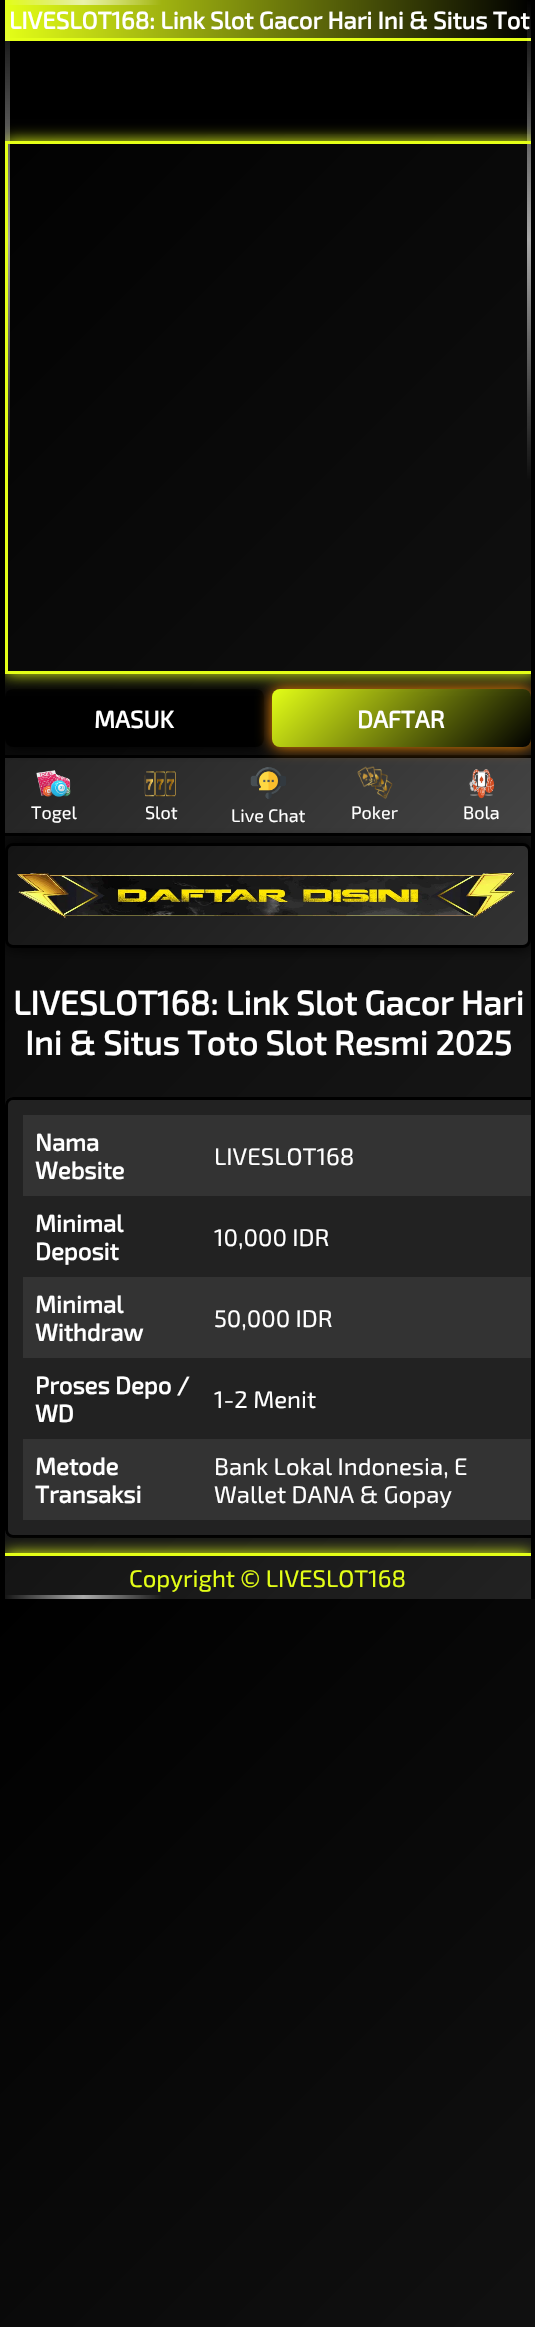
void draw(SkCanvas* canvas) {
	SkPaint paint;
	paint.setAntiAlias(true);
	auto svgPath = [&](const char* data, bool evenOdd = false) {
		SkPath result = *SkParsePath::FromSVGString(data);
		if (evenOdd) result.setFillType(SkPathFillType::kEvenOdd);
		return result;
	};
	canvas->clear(0xffffffff);
	{
		const SkColor colors[] = {0xff000000, 0xff1c1c1c};
		const float stops[] = {0, 1};
		const SkPoint ends[] = {{-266, 266}, {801, 1333}};
		paint.setShader(SkGradientShader::MakeLinear(ends, colors, stops, 2, SkTileMode::kClamp));
		paint.setAlpha(255);
	}
	canvas->drawRect(SkRect::MakeXYWH(5, 134, 526, 1419), paint);
	{
		const SkColor colors[] = {0xff000000, 0xff1c1c1c};
		const float stops[] = {0, 1};
		const SkPoint ends[] = {{-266, 1865}, {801, 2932}};
		paint.setShader(SkGradientShader::MakeLinear(ends, colors, stops, 2, SkTileMode::kClamp));
		paint.setAlpha(255);
	}
	canvas->drawRect(SkRect::MakeXYWH(0, 1599, 535, 728), paint);
	paint.setShader(nullptr);
	paint.setColor(0xff000000);
	canvas->drawRect(SkRect::MakeXYWH(531, 0, 4, 1599), paint);
	canvas->drawRect(SkRect::MakeXYWH(0, 0, 5, 1599), paint);
	{
		const SkColor colors[] = {0xffe4ff17, 0xff000000};
		const float stops[] = {0, 1};
		const SkPoint ends[] = {{4.5, 19}, {531, 19}};
		paint.setShader(SkGradientShader::MakeLinear(ends, colors, stops, 2, SkTileMode::kClamp));
		paint.setAlpha(255);
	}
	canvas->drawRect(SkRect::MakeXYWH(5, 0, 526, 38), paint);
	{
		const SkColor colors[] = {0x00ffffff, 0xa3ffffff, 0x00ffffff};
		const float stops[] = {0, 0.5, 1};
		const SkPoint ends[] = {{4.5, 2.3}, {162, 2.2}};
		paint.setShader(SkGradientShader::MakeLinear(ends, colors, stops, 3, SkTileMode::kClamp));
		paint.setAlpha(255);
	}
	canvas->drawRect(SkRect::MakeXYWH(5, 0, 157, 5), paint);
	paint.setShader(nullptr);
	paint.setColor(0xffe4ff17);
	canvas->drawRect(SkRect::MakeXYWH(5, 38, 526, 3), paint);
	paint.setColor(0xff000000);
	canvas->drawRect(SkRect::MakeXYWH(5, 41, 526, 93), paint);
	{
		const SkColor colors[] = {0x00ffffff, 0xa3ffffff, 0x00ffffff};
		const float stops[] = {0, 0.5, 1};
		const SkPoint ends[] = {{6.7, 0}, {6.8, 480}};
		paint.setShader(SkGradientShader::MakeLinear(ends, colors, stops, 3, SkTileMode::kClamp));
		paint.setAlpha(255);
	}
	canvas->drawRect(SkRect::MakeXYWH(5, 0, 5, 480), paint);
	SkFont f1(fontMgr->matchFamilyStyle("Exo 2", SkFontStyle::Bold()), 24);
	f1.setSubpixel(true);
	paint.setShader(nullptr);
	paint.setColor(0xffffffff);
	canvas->drawString("LIVESLOT168: Link Slot Gacor Hari Ini & Situs Tot", 9, 29, f1, paint);
	{
		const SkColor colors[] = {0x00ffffff, 0xa3ffffff, 0x00ffffff};
		const float stops[] = {0, 0.5, 1};
		const SkPoint ends[] = {{529, 0}, {529, 480}};
		paint.setShader(SkGradientShader::MakeLinear(ends, colors, stops, 3, SkTileMode::kClamp));
		paint.setAlpha(255);
	}
	canvas->drawRect(SkRect::MakeXYWH(527, 0, 4, 480), paint);
	{
		const SkColor colors[] = {0xff222222, 0xff444444};
		const float stops[] = {0, 1};
		const SkPoint ends[] = {{117, 645}, {418, 945}};
		paint.setShader(SkGradientShader::MakeLinear(ends, colors, stops, 2, SkTileMode::kClamp));
		paint.setAlpha(255);
	}
	canvas->drawRect(SkRect::MakeXYWH(5, 758, 526, 75), paint);
	paint.setShader(nullptr);
	paint.setColor(0xff000000);
	canvas->drawRect(SkRect::MakeXYWH(5, 755, 526, 3), paint);
	canvas->save();
	canvas->clipRect(SkRect::MakeXYWH(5, 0, 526, 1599));
	paint.setMaskFilter(SkMaskFilter::MakeBlur(kNormal_SkBlurStyle, 7.5));
	canvas->drawRoundRect(SkRect::MakeXYWH(5, 689, 259, 58), 8, 8, paint);
	paint.setMaskFilter(nullptr);
	canvas->restore();
	canvas->drawRoundRect(SkRect::MakeXYWH(5, 689, 259, 58), 8, 8, paint);
	canvas->save();
	canvas->clipRect(SkRect::MakeXYWH(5, 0, 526, 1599));
	paint.setColor(0xffff8c00);
	paint.setMaskFilter(SkMaskFilter::MakeBlur(kNormal_SkBlurStyle, 7.5));
	canvas->drawRoundRect(SkRect::MakeXYWH(272, 689, 259, 58), 8, 8, paint);
	paint.setMaskFilter(nullptr);
	canvas->restore();
	{
		const SkColor colors[] = {0xffe4ff17, 0xff000000};
		const float stops[] = {0, 1};
		const SkPoint ends[] = {{322, 638}, {481, 797}};
		paint.setShader(SkGradientShader::MakeLinear(ends, colors, stops, 2, SkTileMode::kClamp));
		paint.setAlpha(255);
	}
	canvas->drawRoundRect(SkRect::MakeXYWH(272, 689, 259, 58), 8, 8, paint);
	canvas->save();
	canvas->clipRect(SkRect::MakeXYWH(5, 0, 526, 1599));
	canvas->clipPath(svgPath("M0 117H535V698H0ZM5 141H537V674H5Z", true), true);
	paint.setShader(nullptr);
	paint.setColor(0xffe4ff17);
	paint.setMaskFilter(SkMaskFilter::MakeBlur(kNormal_SkBlurStyle, 7.5));
	canvas->drawRect(SkRect::MakeXYWH(5, 141, 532, 533), paint);
	paint.setMaskFilter(nullptr);
	canvas->restore();
	canvas->save();
	canvas->clipRect(SkRect::MakeXYWH(5, 0, 526, 1599));
	paint.setStroke(true);
	paint.setStrokeWidth(3);
	canvas->drawRect(SkRect::MakeXYWH(6.5, 142.5, 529, 530), paint);
	canvas->restore();
	paint.setStroke(false);
	paint.setColor(0xffffffff);
	canvas->drawString("MASUK", 94, 728, f1, paint);
	canvas->drawString("DAFTAR", 357, 728, f1, paint);
	paint.setColor(0xff000000);
	canvas->drawRect(SkRect::MakeXYWH(5, 833, 526, 3), paint);
	canvas->drawImageRect(SkImages::DeferredFromEncodedData(SkData::MakeFromFileName("img1.png")), SkRect::MakeXYWH(36, 770, 35, 27), SkSamplingOptions());
	SkFont f2(fontMgr->matchFamilyStyle("Exo 2", SkFontStyle::Normal()), 18);
	f2.setSubpixel(true);
	paint.setColor(0xffffffff);
	canvas->drawString("Togel", 31, 819, f2, paint);
	canvas->drawImageRect(SkImages::DeferredFromEncodedData(SkData::MakeFromFileName("img2.png")), SkRect::MakeXYWH(144, 771, 32, 26), SkSamplingOptions());
	canvas->drawString("Slot", 145, 819, f2, paint);
	canvas->drawImageRect(SkImages::DeferredFromEncodedData(SkData::MakeFromFileName("img3.png")), SkRect::MakeXYWH(250, 767, 36, 32), SkSamplingOptions());
	canvas->drawString("Live Chat", 231, 822, f2, paint);
	canvas->drawImageRect(SkImages::DeferredFromEncodedData(SkData::MakeFromFileName("img4.png")), SkRect::MakeXYWH(357, 766, 36, 33), SkSamplingOptions());
	canvas->drawString("Poker", 351, 819, f2, paint);
	canvas->drawImageRect(SkImages::DeferredFromEncodedData(SkData::MakeFromFileName("img5.png")), SkRect::MakeXYWH(468, 769, 27, 30), SkSamplingOptions());
	canvas->drawString("Bola", 463, 819, f2, paint);
	canvas->save();
	canvas->clipRect(SkRect::MakeXYWH(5, 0, 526, 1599));
	paint.setColor(0xff000000);
	paint.setMaskFilter(SkMaskFilter::MakeBlur(kNormal_SkBlurStyle, 7.5));
	canvas->drawRoundRect(SkRect::MakeXYWH(5, 843, 526, 105), 8, 8, paint);
	paint.setMaskFilter(nullptr);
	canvas->restore();
	{
		const SkColor colors[] = {0xff141414, 0xff333333};
		const float stops[] = {0, 1};
		const SkPoint ends[] = {{113, 741}, {423, 1050}};
		paint.setShader(SkGradientShader::MakeLinear(ends, colors, stops, 2, SkTileMode::kClamp));
		paint.setAlpha(255);
	}
	canvas->drawRect(SkRect::MakeXYWH(8, 846, 520, 99), paint);
	paint.setStroke(true);
	paint.setShader(nullptr);
	paint.setColor(0xff000000);
	canvas->drawRoundRect(SkRect::MakeXYWH(6.5, 844.5, 523, 102), 6.5, 6.5, paint);
	canvas->drawImageRect(SkImages::DeferredFromEncodedData(SkData::MakeFromFileName("img6.png")), SkRect::MakeXYWH(17, 873, 498, 46), SkSamplingOptions());
	SkFont f3(fontMgr->matchFamilyStyle("Exo 2", SkFontStyle::Bold()), 33.75);
	f3.setSubpixel(true);
	paint.setStroke(false);
	paint.setColor(0xffffffff);
	canvas->drawString("LIVESLOT168: Link Slot Gacor Hari", 13, 1015, f3, paint);
	canvas->drawString("Ini & Situs Toto Slot Resmi 2025", 25, 1055, f3, paint);
	paint.setColor(0xff222222);
	canvas->drawPath(svgPath("M13 1097H531V1538H13C8.5 1538 5 1534.5 5 1530V1105C5 1100.5 8.5 1097 13 1097Z"), paint);
	canvas->save();
	canvas->clipRect(SkRect::MakeXYWH(5, 0, 526, 1599));
	paint.setStroke(true);
	paint.setColor(0xff000000);
	canvas->drawRoundRect(SkRect::MakeXYWH(6.5, 1098.5, 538, 438), 6.5, 6.5, paint);
	canvas->restore();
	paint.setStroke(false);
	paint.setColor(0xff333333);
	canvas->drawRect(SkRect::MakeXYWH(23, 1115, 508, 81), paint);
	paint.setColor(0xffffffff);
	canvas->drawString("Nama", 35, 1151, f1, paint);
	canvas->drawString("Website", 35, 1179, f1, paint);
	SkFont f4(fontMgr->matchFamilyStyle("Exo 2", SkFontStyle::Normal()), 24);
	f4.setSubpixel(true);
	canvas->drawString("LIVESLOT168", 214, 1165, f4, paint);
	canvas->drawString("Minimal", 35, 1232, f1, paint);
	canvas->drawString("Deposit", 35, 1260, f1, paint);
	canvas->drawString("10,000 IDR", 214, 1246, f4, paint);
	paint.setColor(0xff333333);
	canvas->drawRect(SkRect::MakeXYWH(23, 1277, 508, 81), paint);
	paint.setColor(0xffffffff);
	canvas->drawString("Minimal", 35, 1313, f1, paint);
	canvas->drawString("Withdraw", 35, 1341, f1, paint);
	canvas->drawString("50,000 IDR", 214, 1327, f4, paint);
	canvas->drawString("Proses Depo /", 35, 1394, f1, paint);
	canvas->drawString("WD", 35, 1422, f1, paint);
	canvas->drawString("1-2 Menit", 214, 1408, f4, paint);
	paint.setColor(0xff333333);
	canvas->drawRect(SkRect::MakeXYWH(23, 1439, 508, 81), paint);
	paint.setColor(0xffffffff);
	canvas->drawString("Metode", 35, 1475, f1, paint);
	canvas->drawString("Transaksi", 35, 1503, f1, paint);
	canvas->drawString("Bank Lokal Indonesia, E", 214, 1475, f4, paint);
	canvas->drawString("Wallet DANA & Gopay", 214, 1503, f4, paint);
	canvas->save();
	canvas->clipRect(SkRect::MakeXYWH(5, 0, 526, 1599));
	paint.setColor(0xffe4ff17);
	paint.setMaskFilter(SkMaskFilter::MakeBlur(kNormal_SkBlurStyle, 7.5));
	canvas->drawRect(SkRect::MakeXYWH(5, 1553, 526, 46), paint);
	paint.setMaskFilter(nullptr);
	canvas->restore();
	{
		const SkColor colors[] = {0xff141414, 0xff222222};
		const float stops[] = {0, 1};
		const SkPoint ends[] = {{125, 1435}, {410, 1720}};
		paint.setShader(SkGradientShader::MakeLinear(ends, colors, stops, 2, SkTileMode::kClamp));
		paint.setAlpha(255);
	}
	canvas->drawRect(SkRect::MakeXYWH(5, 1556, 526, 43), paint);
	paint.setShader(nullptr);
	paint.setColor(0xffe4ff17);
	canvas->drawRect(SkRect::MakeXYWH(5, 1553, 526, 3), paint);
	canvas->drawString("Copyright © LIVESLOT168", 129, 1587, f4, paint);
	{
		const SkColor colors[] = {0x00ffffff, 0xa3ffffff, 0x00ffffff};
		const float stops[] = {0, 0.5, 1};
		const SkPoint ends[] = {{4.5, 1597}, {162, 1597}};
		paint.setShader(SkGradientShader::MakeLinear(ends, colors, stops, 3, SkTileMode::kClamp));
		paint.setAlpha(255);
	}
	canvas->drawRect(SkRect::MakeXYWH(5, 1595, 157, 4), paint);
}
